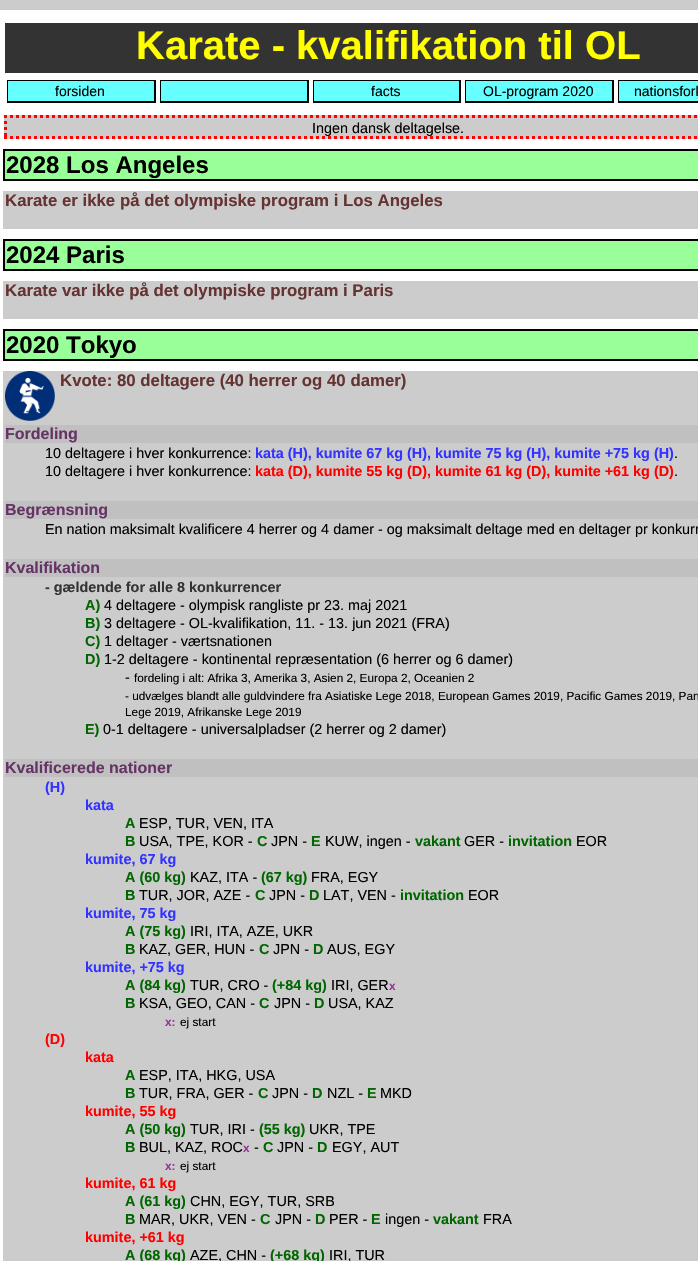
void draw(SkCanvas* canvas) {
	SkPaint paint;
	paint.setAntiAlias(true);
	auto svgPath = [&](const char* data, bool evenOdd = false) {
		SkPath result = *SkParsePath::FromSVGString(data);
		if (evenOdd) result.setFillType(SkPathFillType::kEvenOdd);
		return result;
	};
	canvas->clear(0xffcccccc);
	paint.setColor(0xffffffff);
	canvas->drawRect(SkRect::MakeXYWH(0, 10, 698, 1251), paint);
	paint.setColor(0xff333333);
	canvas->drawRect(SkRect::MakeXYWH(5, 23, 693, 50), paint);
	SkFont f1(fontMgr->matchFamilyStyle("Liberation Sans", SkFontStyle::Bold()), 40);
	f1.setSubpixel(true);
	paint.setColor(0xffffff00);
	canvas->drawString("Karate - kvalifikation til OL", 136, 59, f1, paint);
	paint.setColor(0xff66ffff);
	canvas->drawRect(SkRect::MakeXYWH(8, 81, 146, 20), paint);
	paint.setColor(0xff000000);
	canvas->drawRect(SkRect::MakeXYWH(7, 80, 149, 1), paint);
	canvas->drawRect(SkRect::MakeXYWH(154, 80, 2, 23), paint);
	canvas->drawRect(SkRect::MakeXYWH(7, 101, 149, 2), paint);
	canvas->drawRect(SkRect::MakeXYWH(7, 80, 1, 23), paint);
	paint.setColor(0xffcccccc);
	canvas->drawRect(SkRect::MakeXYWH(153, 83, 1, 16), paint);
	SkFont f2(fontMgr->matchFamilyStyle("Liberation Sans", SkFontStyle::Normal()), 14);
	f2.setSubpixel(true);
	paint.setColor(0xff000000);
	canvas->drawString("forsiden", 55, 96, f2, paint);
	paint.setColor(0xff66ffff);
	canvas->drawRect(SkRect::MakeXYWH(161, 81, 146, 20), paint);
	paint.setColor(0xff000000);
	canvas->drawRect(SkRect::MakeXYWH(160, 80, 149, 1), paint);
	canvas->drawRect(SkRect::MakeXYWH(307, 80, 2, 23), paint);
	canvas->drawRect(SkRect::MakeXYWH(160, 101, 149, 2), paint);
	canvas->drawRect(SkRect::MakeXYWH(160, 80, 1, 23), paint);
	paint.setColor(0xff66ffff);
	canvas->drawRect(SkRect::MakeXYWH(314, 81, 145, 20), paint);
	paint.setColor(0xff000000);
	canvas->drawRect(SkRect::MakeXYWH(313, 80, 148, 1), paint);
	canvas->drawRect(SkRect::MakeXYWH(459, 80, 2, 23), paint);
	canvas->drawRect(SkRect::MakeXYWH(313, 101, 148, 2), paint);
	canvas->drawRect(SkRect::MakeXYWH(313, 80, 1, 23), paint);
	canvas->drawString("facts", 371, 96, f2, paint);
	paint.setColor(0xff66ffff);
	canvas->drawRect(SkRect::MakeXYWH(466, 81, 146, 20), paint);
	paint.setColor(0xff000000);
	canvas->drawRect(SkRect::MakeXYWH(465, 80, 149, 1), paint);
	canvas->drawRect(SkRect::MakeXYWH(612, 80, 2, 23), paint);
	canvas->drawRect(SkRect::MakeXYWH(465, 101, 149, 2), paint);
	canvas->drawRect(SkRect::MakeXYWH(465, 80, 1, 23), paint);
	paint.setColor(0xffcccccc);
	canvas->drawRect(SkRect::MakeXYWH(611, 83, 1, 16), paint);
	paint.setColor(0xff000000);
	canvas->drawString("OL-program 2020", 483, 96, f2, paint);
	paint.setColor(0xff66ffff);
	canvas->drawRect(SkRect::MakeXYWH(619, 81, 79, 20), paint);
	paint.setColor(0xff000000);
	canvas->drawRect(SkRect::MakeXYWH(618, 80, 80, 1), paint);
	canvas->drawRect(SkRect::MakeXYWH(618, 101, 80, 2), paint);
	canvas->drawRect(SkRect::MakeXYWH(618, 80, 1, 23), paint);
	canvas->drawString("nationsfork", 634, 96, f2, paint);
	paint.setColor(0xffcccccc);
	canvas->drawRect(SkRect::MakeXYWH(4, 115, 694, 24), paint);
	paint.setStroke(true);
	paint.setStrokeWidth(3);
	paint.setColor(0xffff0000);
	paint.setPathEffect(SkDashPathEffect::Make({{3, 3}}, 0));
	canvas->drawPath(svgPath("M4 116.5H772"), paint);
	paint.setPathEffect(nullptr);
	paint.setPathEffect(SkDashPathEffect::Make({{3, 3}}, 0));
	canvas->drawPath(svgPath("M4 137.5H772"), paint);
	paint.setPathEffect(nullptr);
	paint.setPathEffect(SkDashPathEffect::Make({{3, 3}}, 0));
	canvas->drawPath(svgPath("M5.5 115V139"), paint);
	paint.setPathEffect(nullptr);
	SkFont f3(fontMgr->matchFamilyStyle("Liberation Sans", SkFontStyle::Normal()), 14.4);
	f3.setSubpixel(true);
	paint.setStroke(false);
	paint.setColor(0xff000000);
	canvas->drawString("Ingen dansk deltagelse.", 312, 133, f3, paint);
	paint.setColor(0xffcccccc);
	canvas->drawRect(SkRect::MakeXYWH(5, 151, 1, 28), paint);
	paint.setStroke(true);
	paint.setStrokeWidth(2);
	paint.setColor(0xff000000);
	canvas->drawRect(SkRect::MakeXYWH(4, 150, 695, 30), paint);
	paint.setStroke(false);
	paint.setColor(0xff99ff99);
	canvas->drawRect(SkRect::MakeXYWH(6, 151, 692, 28), paint);
	SkFont f4(fontMgr->matchFamilyStyle("Liberation Sans", SkFontStyle::Bold()), 24);
	f4.setSubpixel(true);
	paint.setColor(0xff000000);
	canvas->drawString("2028 Los Angeles", 6, 173, f4, paint);
	paint.setColor(0xffcccccc);
	canvas->drawRect(SkRect::MakeXYWH(3, 191, 695, 38), paint);
	SkFont f5(fontMgr->matchFamilyStyle("Liberation Sans", SkFontStyle::Bold()), 16.8);
	f5.setSubpixel(true);
	paint.setColor(0xff663333);
	canvas->drawString("Karate er ikke på det olympiske program i Los Angeles", 5, 206, f5, paint);
	paint.setColor(0xffcccccc);
	canvas->drawRect(SkRect::MakeXYWH(5, 241, 1, 28), paint);
	paint.setStroke(true);
	paint.setColor(0xff000000);
	canvas->drawRect(SkRect::MakeXYWH(4, 240, 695, 30), paint);
	paint.setStroke(false);
	paint.setColor(0xff99ff99);
	canvas->drawRect(SkRect::MakeXYWH(6, 241, 692, 28), paint);
	paint.setColor(0xff000000);
	canvas->drawString("2024 Paris", 6, 263, f4, paint);
	paint.setColor(0xffcccccc);
	canvas->drawRect(SkRect::MakeXYWH(3, 281, 695, 38), paint);
	paint.setColor(0xff663333);
	canvas->drawString("Karate var ikke på det olympiske program i Paris", 5, 296, f5, paint);
	paint.setColor(0xffcccccc);
	canvas->drawRect(SkRect::MakeXYWH(5, 331, 1, 28), paint);
	paint.setStroke(true);
	paint.setColor(0xff000000);
	canvas->drawRect(SkRect::MakeXYWH(4, 330, 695, 30), paint);
	paint.setStroke(false);
	paint.setColor(0xff99ff99);
	canvas->drawRect(SkRect::MakeXYWH(6, 331, 692, 28), paint);
	paint.setColor(0xff000000);
	canvas->drawString("2020 Tokyo", 6, 353, f4, paint);
	paint.setColor(0xffcccccc);
	canvas->drawRect(SkRect::MakeXYWH(3, 371, 695, 890), paint);
	canvas->drawImageRect(SkImages::DeferredFromEncodedData(SkData::MakeFromFileName("img1.png")), SkRect::MakeXYWH(5, 371, 50, 50), SkSamplingOptions());
	paint.setColor(0xff663333);
	canvas->drawString("Kvote: 80 deltagere (40 herrer og 40 damer)", 60, 386, f5, paint);
	paint.setColor(0xffc0c0c0);
	canvas->drawRect(SkRect::MakeXYWH(5, 425, 693, 18), paint);
	SkFont f6(fontMgr->matchFamilyStyle("Liberation Sans", SkFontStyle::Bold()), 16);
	f6.setSubpixel(true);
	paint.setColor(0xff663366);
	canvas->drawString("Fordeling", 5, 439, f6, paint);
	paint.setColor(0xff000000);
	canvas->drawString("10 deltagere i hver konkurrence:", 45, 458, f3, paint);
	SkFont f7(fontMgr->matchFamilyStyle("Liberation Sans", SkFontStyle::Bold()), 14.4);
	f7.setSubpixel(true);
	paint.setColor(0xff3333ff);
	canvas->drawString("kata (H), kumite 67 kg (H), kumite 75 kg (H), kumite +75 kg (H)", 255, 458, f7, paint);
	paint.setColor(0xff000000);
	canvas->drawString(".", 674, 458, f3, paint);
	canvas->drawString("10 deltagere i hver konkurrence:", 45, 476, f3, paint);
	paint.setColor(0xffff0000);
	canvas->drawString("kata (D), kumite 55 kg (D), kumite 61 kg (D), kumite +61 kg (D)", 255, 476, f7, paint);
	paint.setColor(0xff000000);
	canvas->drawString(".", 674, 476, f3, paint);
	paint.setColor(0xffc0c0c0);
	canvas->drawRect(SkRect::MakeXYWH(5, 501, 693, 18), paint);
	paint.setColor(0xff663366);
	canvas->drawString("Begrænsning", 5, 515, f6, paint);
	paint.setColor(0xff000000);
	canvas->drawString("En nation maksimalt kvalificere 4 herrer og 4 damer - og maksimalt deltage med en deltager pr konkurr", 45, 534, f3, paint);
	paint.setColor(0xffc0c0c0);
	canvas->drawRect(SkRect::MakeXYWH(5, 559, 693, 18), paint);
	paint.setColor(0xff663366);
	canvas->drawString("Kvalifikation", 5, 573, f6, paint);
	paint.setColor(0xff333333);
	canvas->drawString("- gældende for alle 8 konkurrencer", 45, 592, f7, paint);
	paint.setColor(0xff006600);
	canvas->drawString("A)", 85, 610, f7, paint);
	paint.setColor(0xff000000);
	canvas->drawString("4 deltagere - olympisk rangliste pr 23. maj 2021", 104, 610, f3, paint);
	paint.setColor(0xff006600);
	canvas->drawString("B)", 85, 628, f7, paint);
	paint.setColor(0xff000000);
	canvas->drawString("3 deltagere - OL-kvalifikation, 11. - 13. jun 2021 (FRA)", 104, 628, f3, paint);
	paint.setColor(0xff006600);
	canvas->drawString("C)", 85, 646, f7, paint);
	paint.setColor(0xff000000);
	canvas->drawString("1 deltager - værtsnationen", 104, 646, f3, paint);
	paint.setColor(0xff006600);
	canvas->drawString("D)", 85, 664, f7, paint);
	paint.setColor(0xff000000);
	canvas->drawString("1-2 deltagere - kontinental repræsentation (6 herrer og 6 damer)", 104, 664, f3, paint);
	canvas->drawString("-", 125, 682, f3, paint);
	SkFont f8(fontMgr->matchFamilyStyle("Liberation Sans", SkFontStyle::Normal()), 11.8);
	f8.setSubpixel(true);
	canvas->drawString("fordeling i alt: Afrika 3, Amerika 3, Asien 2, Europa 2, Oceanien 2", 134, 682, f8, paint);
	canvas->drawString("- udvælges blandt alle guldvindere fra Asiatiske Lege 2018, European Games 2019, Pacific Games 2019, Pan", 125, 700, f8, paint);
	canvas->drawString("Lege 2019, Afrikanske Lege 2019", 125, 716, f8, paint);
	paint.setColor(0xff006600);
	canvas->drawString("E)", 85, 734, f7, paint);
	paint.setColor(0xff000000);
	canvas->drawString("0-1 deltagere - universalpladser (2 herrer og 2 damer)", 103, 734, f3, paint);
	paint.setColor(0xffc0c0c0);
	canvas->drawRect(SkRect::MakeXYWH(5, 759, 693, 18), paint);
	paint.setColor(0xff663366);
	canvas->drawString("Kvalificerede nationer", 5, 773, f6, paint);
	paint.setColor(0xff3333ff);
	canvas->drawString("(H)", 45, 792, f7, paint);
	canvas->drawString("kata", 85, 810, f7, paint);
	paint.setColor(0xff006600);
	canvas->drawString("A", 125, 828, f7, paint);
	paint.setColor(0xff000000);
	canvas->drawString("ESP, TUR, VEN, ITA", 139, 828, f3, paint);
	paint.setColor(0xff006600);
	canvas->drawString("B", 125, 846, f7, paint);
	paint.setColor(0xff000000);
	canvas->drawString("USA, TPE, KOR -", 139, 846, f3, paint);
	paint.setColor(0xff006600);
	canvas->drawString("C", 257, 846, f7, paint);
	paint.setColor(0xff000000);
	canvas->drawString("JPN -", 271, 846, f3, paint);
	paint.setColor(0xff006600);
	canvas->drawString("E", 311, 846, f7, paint);
	paint.setColor(0xff000000);
	canvas->drawString("KUW, ingen -", 325, 846, f3, paint);
	paint.setColor(0xff006600);
	canvas->drawString("vakant", 415, 846, f7, paint);
	paint.setColor(0xff000000);
	canvas->drawString("GER -", 464, 846, f3, paint);
	paint.setColor(0xff006600);
	canvas->drawString("invitation", 508, 846, f7, paint);
	paint.setColor(0xff000000);
	canvas->drawString("EOR", 576, 846, f3, paint);
	paint.setColor(0xff3333ff);
	canvas->drawString("kumite, 67 kg", 85, 864, f7, paint);
	paint.setColor(0xff006600);
	canvas->drawString("A (60 kg)", 125, 882, f7, paint);
	paint.setColor(0xff000000);
	canvas->drawString("KAZ, ITA -", 190, 882, f3, paint);
	paint.setColor(0xff006600);
	canvas->drawString("(67 kg)", 261, 882, f7, paint);
	paint.setColor(0xff000000);
	canvas->drawString("FRA, EGY", 311, 882, f3, paint);
	paint.setColor(0xff006600);
	canvas->drawString("B", 125, 900, f7, paint);
	paint.setColor(0xff000000);
	canvas->drawString("TUR, JOR, AZE -", 139, 900, f3, paint);
	paint.setColor(0xff006600);
	canvas->drawString("C", 255, 900, f7, paint);
	paint.setColor(0xff000000);
	canvas->drawString("JPN -", 269, 900, f3, paint);
	paint.setColor(0xff006600);
	canvas->drawString("D", 309, 900, f7, paint);
	paint.setColor(0xff000000);
	canvas->drawString("LAT, VEN -", 323, 900, f3, paint);
	paint.setColor(0xff006600);
	canvas->drawString("invitation", 400, 900, f7, paint);
	paint.setColor(0xff000000);
	canvas->drawString("EOR", 468, 900, f3, paint);
	paint.setColor(0xff3333ff);
	canvas->drawString("kumite, 75 kg", 85, 918, f7, paint);
	paint.setColor(0xff006600);
	canvas->drawString("A (75 kg)", 125, 936, f7, paint);
	paint.setColor(0xff000000);
	canvas->drawString("IRI, ITA, AZE, UKR", 190, 936, f3, paint);
	paint.setColor(0xff006600);
	canvas->drawString("B", 125, 954, f7, paint);
	paint.setColor(0xff000000);
	canvas->drawString("KAZ, GER, HUN -", 139, 954, f3, paint);
	paint.setColor(0xff006600);
	canvas->drawString("C", 259, 954, f7, paint);
	paint.setColor(0xff000000);
	canvas->drawString("JPN -", 273, 954, f3, paint);
	paint.setColor(0xff006600);
	canvas->drawString("D", 313, 954, f7, paint);
	paint.setColor(0xff000000);
	canvas->drawString("AUS, EGY", 327, 954, f3, paint);
	paint.setColor(0xff3333ff);
	canvas->drawString("kumite, +75 kg", 85, 972, f7, paint);
	paint.setColor(0xff006600);
	canvas->drawString("A (84 kg)", 125, 990, f7, paint);
	paint.setColor(0xff000000);
	canvas->drawString("TUR, CRO -", 190, 990, f3, paint);
	paint.setColor(0xff006600);
	canvas->drawString("(+84 kg)", 272, 990, f7, paint);
	paint.setColor(0xff000000);
	canvas->drawString("IRI, GER", 331, 990, f3, paint);
	SkFont f9(fontMgr->matchFamilyStyle("Liberation Sans", SkFontStyle::Bold()), 11.8);
	f9.setSubpixel(true);
	paint.setColor(0xff993399);
	canvas->drawString("x", 389, 990, f9, paint);
	paint.setColor(0xff006600);
	canvas->drawString("B", 125, 1008, f7, paint);
	paint.setColor(0xff000000);
	canvas->drawString("KSA, GEO, CAN -", 139, 1008, f3, paint);
	paint.setColor(0xff006600);
	canvas->drawString("C", 259, 1008, f7, paint);
	paint.setColor(0xff000000);
	canvas->drawString("JPN -", 274, 1008, f3, paint);
	paint.setColor(0xff006600);
	canvas->drawString("D", 314, 1008, f7, paint);
	paint.setColor(0xff000000);
	canvas->drawString("USA, KAZ", 328, 1008, f3, paint);
	paint.setColor(0xff993399);
	canvas->drawString("x:", 165, 1026, f9, paint);
	paint.setColor(0xff000000);
	canvas->drawString("ej start", 180, 1026, f8, paint);
	paint.setColor(0xffff0000);
	canvas->drawString("(D)", 45, 1044, f7, paint);
	canvas->drawString("kata", 85, 1062, f7, paint);
	paint.setColor(0xff006600);
	canvas->drawString("A", 125, 1080, f7, paint);
	paint.setColor(0xff000000);
	canvas->drawString("ESP, ITA, HKG, USA", 139, 1080, f3, paint);
	paint.setColor(0xff006600);
	canvas->drawString("B", 125, 1098, f7, paint);
	paint.setColor(0xff000000);
	canvas->drawString("TUR, FRA, GER -", 139, 1098, f3, paint);
	paint.setColor(0xff006600);
	canvas->drawString("C", 258, 1098, f7, paint);
	paint.setColor(0xff000000);
	canvas->drawString("JPN -", 272, 1098, f3, paint);
	paint.setColor(0xff006600);
	canvas->drawString("D", 312, 1098, f7, paint);
	paint.setColor(0xff000000);
	canvas->drawString("NZL -", 327, 1098, f3, paint);
	paint.setColor(0xff006600);
	canvas->drawString("E", 367, 1098, f7, paint);
	paint.setColor(0xff000000);
	canvas->drawString("MKD", 380, 1098, f3, paint);
	paint.setColor(0xffff0000);
	canvas->drawString("kumite, 55 kg", 85, 1116, f7, paint);
	paint.setColor(0xff006600);
	canvas->drawString("A (50 kg)", 125, 1134, f7, paint);
	paint.setColor(0xff000000);
	canvas->drawString("TUR, IRI -", 190, 1134, f3, paint);
	paint.setColor(0xff006600);
	canvas->drawString("(55 kg)", 259, 1134, f7, paint);
	paint.setColor(0xff000000);
	canvas->drawString("UKR, TPE", 309, 1134, f3, paint);
	paint.setColor(0xff006600);
	canvas->drawString("B", 125, 1152, f7, paint);
	paint.setColor(0xff000000);
	canvas->drawString("BUL, KAZ, ROC", 139, 1152, f3, paint);
	paint.setColor(0xff993399);
	canvas->drawString("x", 243, 1152, f9, paint);
	paint.setColor(0xff000000);
	canvas->drawString("-", 254, 1152, f3, paint);
	paint.setColor(0xff006600);
	canvas->drawString("C", 263, 1152, f7, paint);
	paint.setColor(0xff000000);
	canvas->drawString("JPN -", 277, 1152, f3, paint);
	paint.setColor(0xff006600);
	canvas->drawString("D", 317, 1152, f7, paint);
	paint.setColor(0xff000000);
	canvas->drawString("EGY, AUT", 332, 1152, f3, paint);
	paint.setColor(0xff993399);
	canvas->drawString("x:", 165, 1170, f9, paint);
	paint.setColor(0xff000000);
	canvas->drawString("ej start", 180, 1170, f8, paint);
	paint.setColor(0xffff0000);
	canvas->drawString("kumite, 61 kg", 85, 1188, f7, paint);
	paint.setColor(0xff006600);
	canvas->drawString("A (61 kg)", 125, 1206, f7, paint);
	paint.setColor(0xff000000);
	canvas->drawString("CHN, EGY, TUR, SRB", 190, 1206, f3, paint);
	paint.setColor(0xff006600);
	canvas->drawString("B", 125, 1224, f7, paint);
	paint.setColor(0xff000000);
	canvas->drawString("MAR, UKR, VEN -", 139, 1224, f3, paint);
	paint.setColor(0xff006600);
	canvas->drawString("C", 260, 1224, f7, paint);
	paint.setColor(0xff000000);
	canvas->drawString("JPN -", 275, 1224, f3, paint);
	paint.setColor(0xff006600);
	canvas->drawString("D", 315, 1224, f7, paint);
	paint.setColor(0xff000000);
	canvas->drawString("PER -", 329, 1224, f3, paint);
	paint.setColor(0xff006600);
	canvas->drawString("E", 371, 1224, f7, paint);
	paint.setColor(0xff000000);
	canvas->drawString("ingen -", 385, 1224, f3, paint);
	paint.setColor(0xff006600);
	canvas->drawString("vakant", 433, 1224, f7, paint);
	paint.setColor(0xff000000);
	canvas->drawString("FRA", 483, 1224, f3, paint);
	paint.setColor(0xffff0000);
	canvas->drawString("kumite, +61 kg", 85, 1242, f7, paint);
	paint.setColor(0xff006600);
	canvas->drawString("A (68 kg)", 125, 1260, f7, paint);
	paint.setColor(0xff000000);
	canvas->drawString("AZE, CHN -", 190, 1260, f3, paint);
	paint.setColor(0xff006600);
	canvas->drawString("(+68 kg)", 270, 1260, f7, paint);
	paint.setColor(0xff000000);
	canvas->drawString("IRI, TUR", 329, 1260, f3, paint);
}
